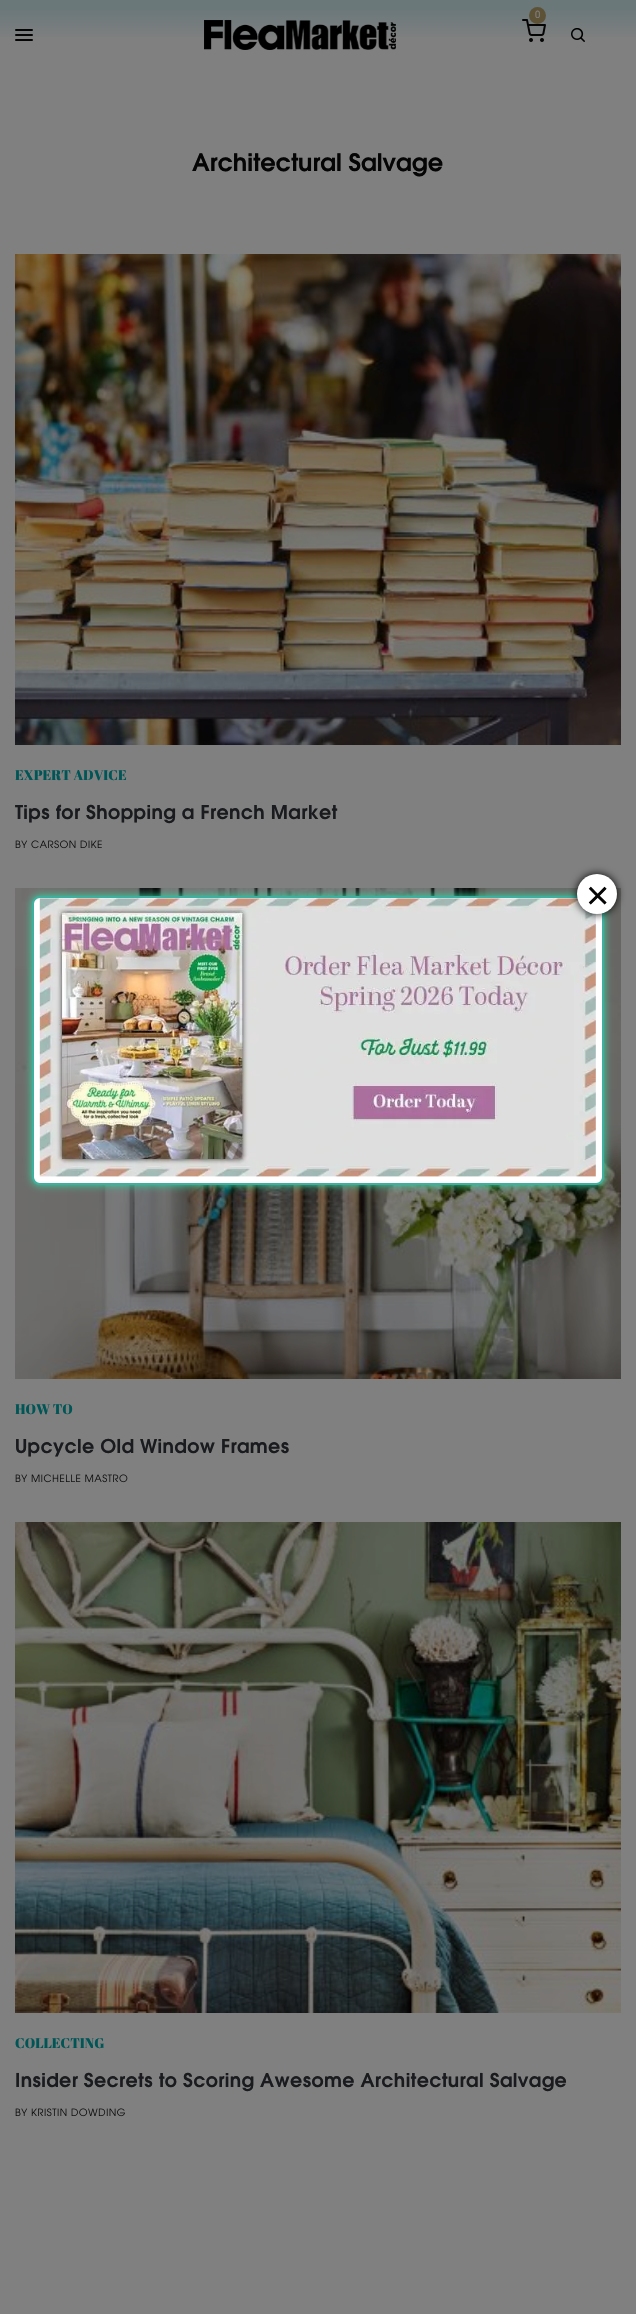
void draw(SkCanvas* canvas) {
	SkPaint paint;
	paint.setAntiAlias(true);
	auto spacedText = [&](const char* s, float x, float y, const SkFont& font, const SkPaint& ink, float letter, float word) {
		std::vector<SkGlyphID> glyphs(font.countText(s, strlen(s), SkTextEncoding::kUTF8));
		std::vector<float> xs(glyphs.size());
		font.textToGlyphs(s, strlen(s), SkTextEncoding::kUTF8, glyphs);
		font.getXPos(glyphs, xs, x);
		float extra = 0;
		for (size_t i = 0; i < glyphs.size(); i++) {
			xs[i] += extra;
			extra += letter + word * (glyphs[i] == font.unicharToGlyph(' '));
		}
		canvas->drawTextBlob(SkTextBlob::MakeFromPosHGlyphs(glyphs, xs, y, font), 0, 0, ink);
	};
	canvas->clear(0xff808080);
	{
		const SkColor colors[] = {0xff808080, 0xff6b787a};
		const float stops[] = {0.42, 0.87};
		const SkPoint ends[] = {{318, 70}, {318, 0}};
		paint.setShader(SkGradientShader::MakeLinear(ends, colors, stops, 2, SkTileMode::kClamp));
		paint.setAlpha(255);
	}
	canvas->drawRect(SkRect::MakeXYWH(0, 0, 636, 37), paint);
	canvas->drawImageRect(SkImages::DeferredFromEncodedData(SkData::MakeFromFileName("img1.png")), SkRect::MakeXYWH(522, 19, 24, 23), SkSamplingOptions());
	paint.setShader(nullptr);
	paint.setColor(0xff5d5136);
	canvas->drawCircle(537.5, 15.5, 8.5, paint);
	SkFont f1(fontMgr->matchFamilyStyle("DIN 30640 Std", SkFontStyle(300, SkFontStyle::kNormal_Width, SkFontStyle::kUpright_Slant)), 10);
	f1.setSubpixel(true);
	paint.setColor(0xff808080);
	canvas->drawString("0", 535, 18, f1, paint);
	canvas->drawImageRect(SkImages::DeferredFromEncodedData(SkData::MakeFromFileName("img2.png")), SkRect::MakeXYWH(571, 28, 14, 14), SkSamplingOptions());
	paint.setColor(0xff050505);
	canvas->drawRoundRect(SkRect::MakeXYWH(15, 29, 18, 2), 1, 1, paint);
	canvas->drawRoundRect(SkRect::MakeXYWH(15, 34, 18, 2), 1, 1, paint);
	canvas->drawRoundRect(SkRect::MakeXYWH(15, 39, 18, 2), 1, 1, paint);
	canvas->drawImageRect(SkImages::DeferredFromEncodedData(SkData::MakeFromFileName("img3.png")), SkRect::MakeXYWH(204, 20, 192, 30), SkSamplingOptions());
	SkFont f2(fontMgr->matchFamilyStyle("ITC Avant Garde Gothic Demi", SkFontStyle(600, SkFontStyle::kNormal_Width, SkFontStyle::kUpright_Slant)), 24);
	f2.setSubpixel(true);
	canvas->drawString("Architectural Salvage", 192, 171, f2, paint);
	canvas->drawImageRect(SkImages::DeferredFromEncodedData(SkData::MakeFromFileName("img4.png")), SkRect::MakeXYWH(15, 254, 606, 491), SkSamplingOptions());
	SkFont f3(fontMgr->matchFamilyStyle("Abril Fatface", SkFontStyle::Normal()), 14);
	f3.setSubpixel(true);
	paint.setColor(0xff005556);
	canvas->drawString("EXPERT ADVICE", 15, 780, f3, paint);
	SkFont f4(fontMgr->matchFamilyStyle("ITC Avant Garde Gothic Demi", SkFontStyle(600, SkFontStyle::kNormal_Width, SkFontStyle::kUpright_Slant)), 19);
	f4.setSubpixel(true);
	paint.setColor(0xff1a1b1e);
	spacedText("Tips for Shopping a French Market", 15, 819, f4, paint, 0.38, 0);
	canvas->drawImageRect(SkImages::DeferredFromEncodedData(SkData::MakeFromFileName("img5.png")), SkRect::MakeXYWH(15, 840, 13, 8), SkSamplingOptions());
	canvas->drawImageRect(SkImages::DeferredFromEncodedData(SkData::MakeFromFileName("img6.png")), SkRect::MakeXYWH(31, 840, 71, 9), SkSamplingOptions());
	canvas->drawImageRect(SkImages::DeferredFromEncodedData(SkData::MakeFromFileName("img7.png")), SkRect::MakeXYWH(15, 888, 606, 491), SkSamplingOptions());
	paint.setColor(0xff005556);
	canvas->drawString("HOW TO", 15, 1414, f3, paint);
	paint.setColor(0xff1a1b1e);
	spacedText("Upcycle Old Window Frames", 15, 1453, f4, paint, 0.38, 0);
	canvas->drawImageRect(SkImages::DeferredFromEncodedData(SkData::MakeFromFileName("img5.png")), SkRect::MakeXYWH(15, 1474, 13, 8), SkSamplingOptions());
	canvas->drawImageRect(SkImages::DeferredFromEncodedData(SkData::MakeFromFileName("img8.png")), SkRect::MakeXYWH(31, 1474, 97, 9), SkSamplingOptions());
	canvas->drawImageRect(SkImages::DeferredFromEncodedData(SkData::MakeFromFileName("img9.png")), SkRect::MakeXYWH(15, 1522, 606, 491), SkSamplingOptions());
	paint.setColor(0xff005556);
	canvas->drawString("COLLECTING", 15, 2048, f3, paint);
	paint.setColor(0xff1a1b1e);
	spacedText("Insider Secrets to Scoring Awesome Architectural Salvage", 15, 2087, f4, paint, 0.38, 0);
	canvas->drawImageRect(SkImages::DeferredFromEncodedData(SkData::MakeFromFileName("img5.png")), SkRect::MakeXYWH(15, 2108, 13, 8), SkSamplingOptions());
	canvas->drawImageRect(SkImages::DeferredFromEncodedData(SkData::MakeFromFileName("img10.png")), SkRect::MakeXYWH(31, 2108, 94, 9), SkSamplingOptions());
	paint.setColor(0xff32dba4);
	paint.setMaskFilter(SkMaskFilter::MakeBlur(kNormal_SkBlurStyle, 4.5));
	canvas->drawRoundRect(SkRect::MakeXYWH(32, 896, 572, 289), 8, 8, paint);
	paint.setMaskFilter(nullptr);
	paint.setColor(0xffffffff);
	canvas->drawRoundRect(SkRect::MakeXYWH(33, 897, 570, 287), 7, 7, paint);
	paint.setStroke(true);
	paint.setStrokeWidth(2);
	paint.setColor(0xff3faf9f);
	canvas->drawRoundRect(SkRect::MakeXYWH(33, 897, 570, 287), 7, 7, paint);
	canvas->drawImageRect(SkImages::DeferredFromEncodedData(SkData::MakeFromFileName("img11.png")), SkRect::MakeXYWH(39, 898, 557, 279), SkSamplingOptions());
	paint.setStroke(false);
	paint.setColor(0xff000000);
	paint.setMaskFilter(SkMaskFilter::MakeBlur(kNormal_SkBlurStyle, 4.5));
	canvas->drawRoundRect(SkRect::MakeXYWH(577, 874, 40, 40), 20, 20, paint);
	paint.setMaskFilter(nullptr);
	paint.setColor(0xffffffff);
	canvas->drawCircle(597, 894, 20, paint);
	SkFont f5(fontMgr->matchFamilyStyle("Liberation Sans", SkFontStyle::Normal()), 40);
	f5.setSubpixel(true);
	paint.setColor(0xff050505);
	canvas->drawString("×", 586, 909, f5, paint);
}
